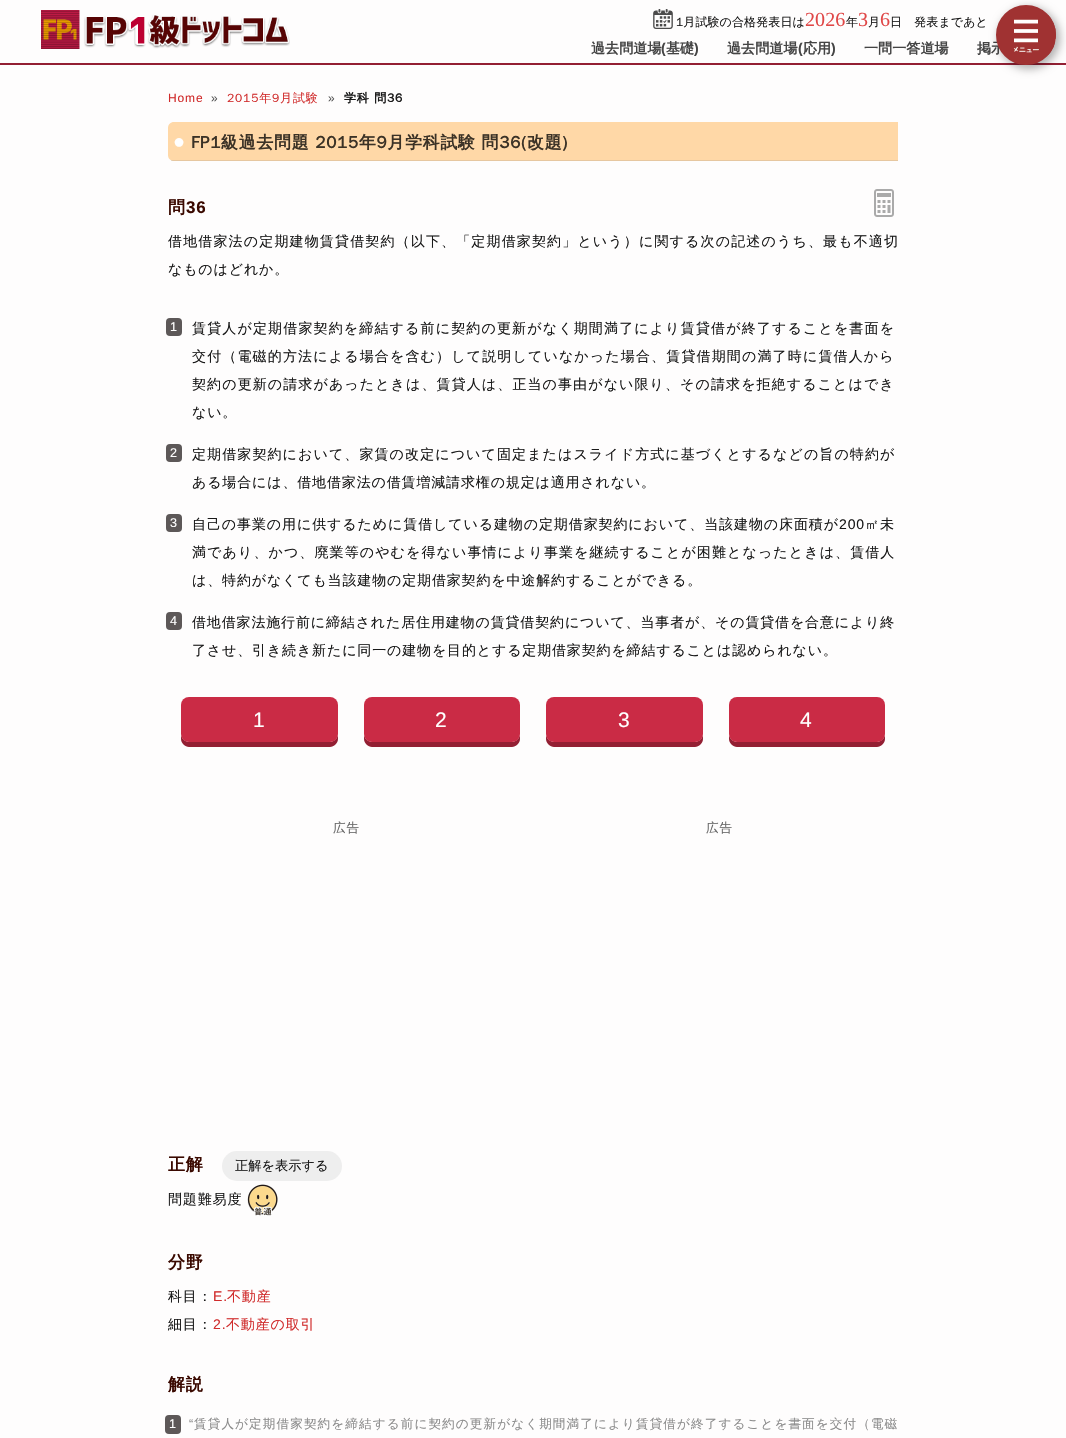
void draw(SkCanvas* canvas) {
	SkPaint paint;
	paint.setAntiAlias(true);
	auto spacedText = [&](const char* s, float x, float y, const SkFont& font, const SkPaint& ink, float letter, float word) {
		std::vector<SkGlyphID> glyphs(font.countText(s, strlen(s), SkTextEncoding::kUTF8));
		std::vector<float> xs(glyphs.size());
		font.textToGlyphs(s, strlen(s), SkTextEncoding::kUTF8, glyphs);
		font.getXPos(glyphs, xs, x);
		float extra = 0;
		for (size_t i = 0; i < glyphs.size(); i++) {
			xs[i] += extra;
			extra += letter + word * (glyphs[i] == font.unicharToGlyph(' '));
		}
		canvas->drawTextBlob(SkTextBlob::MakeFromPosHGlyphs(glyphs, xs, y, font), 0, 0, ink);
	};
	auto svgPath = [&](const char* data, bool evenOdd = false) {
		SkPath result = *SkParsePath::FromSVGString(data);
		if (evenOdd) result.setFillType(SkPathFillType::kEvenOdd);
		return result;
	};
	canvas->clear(0xfffefdfd);
	paint.setColor(0xff931f33);
	canvas->drawRect(SkRect::MakeXYWH(0, 63, 1066, 2), paint);
	canvas->drawImageRect(SkImages::DeferredFromEncodedData(SkData::MakeFromFileName("img1.png")), SkRect::MakeXYWH(41, 10, 249, 39), SkSamplingOptions());
	canvas->drawImageRect(SkImages::DeferredFromEncodedData(SkData::MakeFromFileName("img2.png")), SkRect::MakeXYWH(653, 9, 20, 20), SkSamplingOptions());
	SkFont f1(fontMgr->matchFamilyStyle("WenQuanYi Zen Hei", SkFontStyle(500, SkFontStyle::kNormal_Width, SkFontStyle::kUpright_Slant)), 12);
	f1.setSubpixel(true);
	paint.setColor(0xff191919);
	spacedText("1月試験の合格発表日は", 676, 26, f1, paint, 0.1, 0);
	SkFont f2(fontMgr->matchFamilyStyle("Liberation Serif", SkFontStyle::Normal()), 20);
	f2.setSubpixel(true);
	paint.setColor(0xffe04747);
	spacedText("2026", 805, 26, f2, paint, 0.1, 0);
	paint.setColor(0xff191919);
	spacedText("年", 846, 26, f1, paint, 0.1, 0);
	paint.setColor(0xffe04747);
	spacedText("3", 858, 26, f2, paint, 0.1, 0);
	paint.setColor(0xff191919);
	spacedText("月", 868, 26, f1, paint, 0.1, 0);
	paint.setColor(0xffe04747);
	spacedText("6", 880, 26, f2, paint, 0.1, 0);
	paint.setColor(0xff191919);
	spacedText("日　発表まであと", 890, 26, f1, paint, 0.1, 0);
	SkFont f3(fontMgr->matchFamilyStyle("WenQuanYi Zen Hei", SkFontStyle::Bold()), 14);
	f3.setSubpixel(true);
	paint.setColor(0xff444444);
	spacedText("過去問道場", 591, 53, f3, paint, 0.1, 0);
	SkFont f4(fontMgr->matchFamilyStyle("Liberation Sans", SkFontStyle::Bold()), 14);
	f4.setSubpixel(true);
	spacedText("(", 661, 53, f4, paint, 0.1, 0);
	spacedText("基礎", 666, 53, f3, paint, 0.1, 0);
	spacedText(")", 694, 53, f4, paint, 0.1, 0);
	spacedText("過去問道場", 727, 53, f3, paint, 0.1, 0);
	spacedText("(", 798, 53, f4, paint, 0.1, 0);
	spacedText("応用", 803, 53, f3, paint, 0.1, 0);
	spacedText(")", 831, 53, f4, paint, 0.1, 0);
	spacedText("一問一答道場", 864, 53, f3, paint, 0.1, 0);
	spacedText("掲示", 977, 53, f3, paint, 0.1, 0);
	paint.setColor(0x4d000000);
	paint.setMaskFilter(SkMaskFilter::MakeBlur(kNormal_SkBlurStyle, 4));
	canvas->drawRoundRect(SkRect::MakeXYWH(998, 7, 62, 62), 31, 31, paint);
	paint.setMaskFilter(nullptr);
	canvas->drawImageRect(SkImages::DeferredFromEncodedData(SkData::MakeFromFileName("img3.png")), SkRect::MakeXYWH(1006, 15, 50, 40), SkSamplingOptions());
	paint.setStroke(true);
	paint.setStrokeWidth(10);
	paint.setColor(0xffa03232);
	canvas->drawCircle(1026, 35, 25, paint);
	SkFont f5(fontMgr->matchFamilyStyle("Liberation Sans", SkFontStyle::Normal()), 12);
	f5.setSubpixel(true);
	paint.setStroke(false);
	paint.setColor(0xffd02b2b);
	spacedText("Home", 168, 102, f5, paint, 0.85, 0);
	paint.setColor(0xff555555);
	spacedText("»", 211, 102, f5, paint, 0.85, 0);
	paint.setColor(0xffd02b2b);
	spacedText("2015年9月試験", 227, 102, f1, paint, 0.85, 0);
	paint.setColor(0xff555555);
	spacedText("»", 328, 102, f5, paint, 0.85, 0);
	SkFont f6(fontMgr->matchFamilyStyle("WenQuanYi Zen Hei", SkFontStyle::Bold()), 12);
	f6.setSubpixel(true);
	paint.setColor(0xff191919);
	spacedText("学科 問36", 344, 102, f6, paint, 0.85, 0);
	paint.setColor(0xffffd8a7);
	canvas->drawPath(svgPath("M174 122H898V161H174C170.5 161 168 158.5 168 155V128C168 124.5 170.5 122 174 122Z"), paint);
	paint.setColor(0x33808080);
	canvas->drawRect(SkRect::MakeXYWH(171, 160, 727, 1), paint);
	SkFont f7(fontMgr->matchFamilyStyle("Liberation Serif", SkFontStyle::Bold()), 20);
	f7.setSubpixel(true);
	paint.setColor(0xffffffff);
	spacedText("●", 173, 148, f7, paint, 0.85, 0);
	SkFont f8(fontMgr->matchFamilyStyle("WenQuanYi Zen Hei", SkFontStyle::Bold()), 16.8);
	f8.setSubpixel(true);
	paint.setColor(0xff3b3226);
	spacedText("FP1級過去問題 2015年9月学科試験 問36(改題)", 191, 148, f8, paint, 0.85, 0);
	SkFont f9(fontMgr->matchFamilyStyle("WenQuanYi Zen Hei", SkFontStyle::Bold()), 17);
	f9.setSubpixel(true);
	paint.setColor(0xff3a0900);
	spacedText("問", 168, 213, f9, paint, 0.85, 0);
	SkFont f10(fontMgr->matchFamilyStyle("Liberation Sans", SkFontStyle::Bold()), 17);
	f10.setSubpixel(true);
	spacedText("36", 186, 213, f10, paint, 0.85, 0);
	canvas->drawImageRect(SkImages::DeferredFromEncodedData(SkData::MakeFromFileName("img4.png")), SkRect::MakeXYWH(874, 189, 20, 28), SkSamplingOptions());
	SkFont f11(fontMgr->matchFamilyStyle("WenQuanYi Zen Hei", SkFontStyle(500, SkFontStyle::kNormal_Width, SkFontStyle::kUpright_Slant)), 14);
	f11.setSubpixel(true);
	paint.setColor(0xff191919);
	spacedText("借地借家法の定期建物賃貸借契約（以下、「定期借家契約」という）に関する次の記述のうち、最も不適切", 168, 246, f11, paint, 1.15, 0);
	spacedText("なものはどれか。", 168, 274, f11, paint, 0.85, 0);
	paint.setColor(0xff5d5858);
	canvas->drawRoundRect(SkRect::MakeXYWH(166, 318, 16, 18), 4, 4, paint);
	SkFont f12(fontMgr->matchFamilyStyle("Liberation Sans", SkFontStyle::Normal()), 12.6);
	f12.setSubpixel(true);
	paint.setColor(0xffffffff);
	spacedText("1", 170, 331, f12, paint, 0.85, 0);
	paint.setColor(0xff191919);
	spacedText("賃貸人が定期借家契約を締結する前に契約の更新がなく期間満了により賃貸借が終了することを書面を", 192, 333, f11, paint, 1.15, 0);
	spacedText("交付（電磁的方法による場合を含む）して説明していなかった場合、賃貸借期間の満了時に賃借人から", 192, 361, f11, paint, 1.15, 0);
	spacedText("契約の更新の請求があったときは、賃貸人は、正当の事由がない限り、その請求を拒絶することはでき", 192, 389, f11, paint, 1.1, 0);
	spacedText("ない。", 192, 417, f11, paint, 0.85, 0);
	paint.setColor(0xff5d5858);
	canvas->drawRoundRect(SkRect::MakeXYWH(166, 444, 16, 18), 4, 4, paint);
	paint.setColor(0xffffffff);
	spacedText("2", 170, 457, f12, paint, 0.85, 0);
	paint.setColor(0xff191919);
	spacedText("定期借家契約において、家賃の改定について固定またはスライド方式に基づくとするなどの旨の特約が", 192, 459, f11, paint, 1.1, 0);
	spacedText("ある場合には、借地借家法の借賃増減請求権の規定は適用されない。", 192, 487, f11, paint, 0.85, 0);
	paint.setColor(0xff5d5858);
	canvas->drawRoundRect(SkRect::MakeXYWH(166, 514, 16, 18), 4, 4, paint);
	paint.setColor(0xffffffff);
	spacedText("3", 170, 527, f12, paint, 0.85, 0);
	paint.setColor(0xff191919);
	spacedText("自己の事業の用に供するために賃借している建物の定期借家契約において、当該建物の床面積が", 192, 529, f11, paint, 0.9, 0);
	SkFont f13(fontMgr->matchFamilyStyle("Liberation Sans", SkFontStyle::Normal()), 14);
	f13.setSubpixel(true);
	spacedText("200", 839, 529, f13, paint, 0.9, 0);
	spacedText("㎡未", 865, 529, f11, paint, 0.9, 0);
	spacedText("満であり、かつ、廃業等のやむを得ない事情により事業を継続することが困難となったときは、賃借人", 192, 557, f11, paint, 1.1, 0);
	spacedText("は、特約がなくても当該建物の定期借家契約を中途解約することができる。", 192, 585, f11, paint, 0.85, 0);
	paint.setColor(0xff5d5858);
	canvas->drawRoundRect(SkRect::MakeXYWH(166, 612, 16, 18), 4, 4, paint);
	paint.setColor(0xffffffff);
	spacedText("4", 170, 625, f12, paint, 0.85, 0);
	paint.setColor(0xff191919);
	spacedText("借地借家法施行前に締結された居住用建物の賃貸借契約について、当事者が、その賃貸借を合意により終", 192, 627, f11, paint, 0.85, 0);
	spacedText("了させ、引き続き新たに同一の建物を目的とする定期借家契約を締結することは認められない。", 192, 655, f11, paint, 0.85, 0);
	paint.setColor(0xff931f33);
	canvas->drawPath(svgPath("M181 734V739C181 743 185 747 189 747H330C334 747 338 743 338 739V734C338 738 334 742 330 742H189C185 742 181 738 181 734Z"), paint);
	paint.setColor(0xffca2b45);
	canvas->drawRoundRect(SkRect::MakeXYWH(181, 697, 157, 45), 8, 8, paint);
	SkFont f14(fontMgr->matchFamilyStyle("Liberation Sans", SkFontStyle::Normal()), 21);
	f14.setSubpixel(true);
	paint.setColor(0xffffffff);
	spacedText("1", 253, 727, f14, paint, 0.85, 0);
	paint.setColor(0xff931f33);
	canvas->drawPath(svgPath("M364 734V739C364 743 368 747 372 747H512C516 747 520 743 520 739V734C520 738 516 742 512 742H372C368 742 364 738 364 734Z"), paint);
	paint.setColor(0xffca2b45);
	canvas->drawRoundRect(SkRect::MakeXYWH(364, 697, 156, 45), 8, 8, paint);
	paint.setColor(0xffffffff);
	spacedText("2", 435, 727, f14, paint, 0.85, 0);
	paint.setColor(0xff931f33);
	canvas->drawPath(svgPath("M546 734V739C546 743 550 747 554 747H695C699 747 703 743 703 739V734C703 738 699 742 695 742H554C550 742 546 738 546 734Z"), paint);
	paint.setColor(0xffca2b45);
	canvas->drawRoundRect(SkRect::MakeXYWH(546, 697, 157, 45), 8, 8, paint);
	paint.setColor(0xffffffff);
	spacedText("3", 618, 727, f14, paint, 0.85, 0);
	paint.setColor(0xff931f33);
	canvas->drawPath(svgPath("M729 734V739C729 743 733 747 737 747H877C881 747 885 743 885 739V734C885 738 881 742 877 742H737C733 742 729 738 729 734Z"), paint);
	paint.setColor(0xffca2b45);
	canvas->drawRoundRect(SkRect::MakeXYWH(729, 697, 156, 45), 8, 8, paint);
	paint.setColor(0xffffffff);
	spacedText("4", 800, 727, f14, paint, 0.85, 0);
	SkFont f15(fontMgr->matchFamilyStyle("WenQuanYi Zen Hei", SkFontStyle(500, SkFontStyle::kNormal_Width, SkFontStyle::kUpright_Slant)), 12.6);
	f15.setSubpixel(true);
	paint.setColor(0xff666666);
	spacedText("広告", 333, 832, f15, paint, 0.85, 0);
	spacedText("広告", 706, 832, f15, paint, 0.85, 0);
	paint.setColor(0xff3a0900);
	spacedText("正解", 168, 1170, f9, paint, 0.85, 0);
	paint.setColor(0xffeeeeee);
	canvas->drawRoundRect(SkRect::MakeXYWH(222, 1151, 120, 30), 15, 15, paint);
	SkFont f16(fontMgr->matchFamilyStyle("WenQuanYi Zen Hei", SkFontStyle(500, SkFontStyle::kNormal_Width, SkFontStyle::kUpright_Slant)), 13.25);
	f16.setSubpixel(true);
	paint.setColor(0xff191919);
	canvas->drawString("正解を表示する", 235, 1170, f16, paint);
	spacedText("問題難易度", 168, 1204, f11, paint, 0.85, 0);
	canvas->drawImageRect(SkImages::DeferredFromEncodedData(SkData::MakeFromFileName("img5.png")), SkRect::MakeXYWH(247, 1184, 31, 32), SkSamplingOptions());
	paint.setColor(0xff3a0900);
	spacedText("分野", 168, 1268, f9, paint, 0.85, 0);
	paint.setColor(0xff191919);
	spacedText("科目：", 168, 1301, f11, paint, 0.85, 0);
	paint.setColor(0xffd02b2b);
	spacedText("E.", 213, 1301, f13, paint, 0.85, 0);
	spacedText("不動産", 227, 1301, f11, paint, 0.85, 0);
	paint.setColor(0xff191919);
	spacedText("細目：", 168, 1329, f11, paint, 0.85, 0);
	paint.setColor(0xffd02b2b);
	spacedText("2.", 213, 1329, f13, paint, 0.85, 0);
	spacedText("不動産の取引", 226, 1329, f11, paint, 0.85, 0);
	paint.setColor(0xff3a0900);
	spacedText("解説", 168, 1390, f9, paint, 0.85, 0);
	paint.setColor(0xff5d5858);
	canvas->drawRoundRect(SkRect::MakeXYWH(165, 1415, 16, 19), 4, 4, paint);
	paint.setColor(0xffffffff);
	spacedText("1", 169, 1428, f12, paint, 0.85, 0);
	paint.setColor(0xff8c8c8c);
	spacedText("“", 189, 1428, f12, paint, 1.1, 0);
	spacedText("賃貸人が定期借家契約を締結する前に契約の更新がなく期間満了により賃貸借が終了することを書面を交付（電磁", 194, 1428, f15, paint, 1.1, 0);
}
